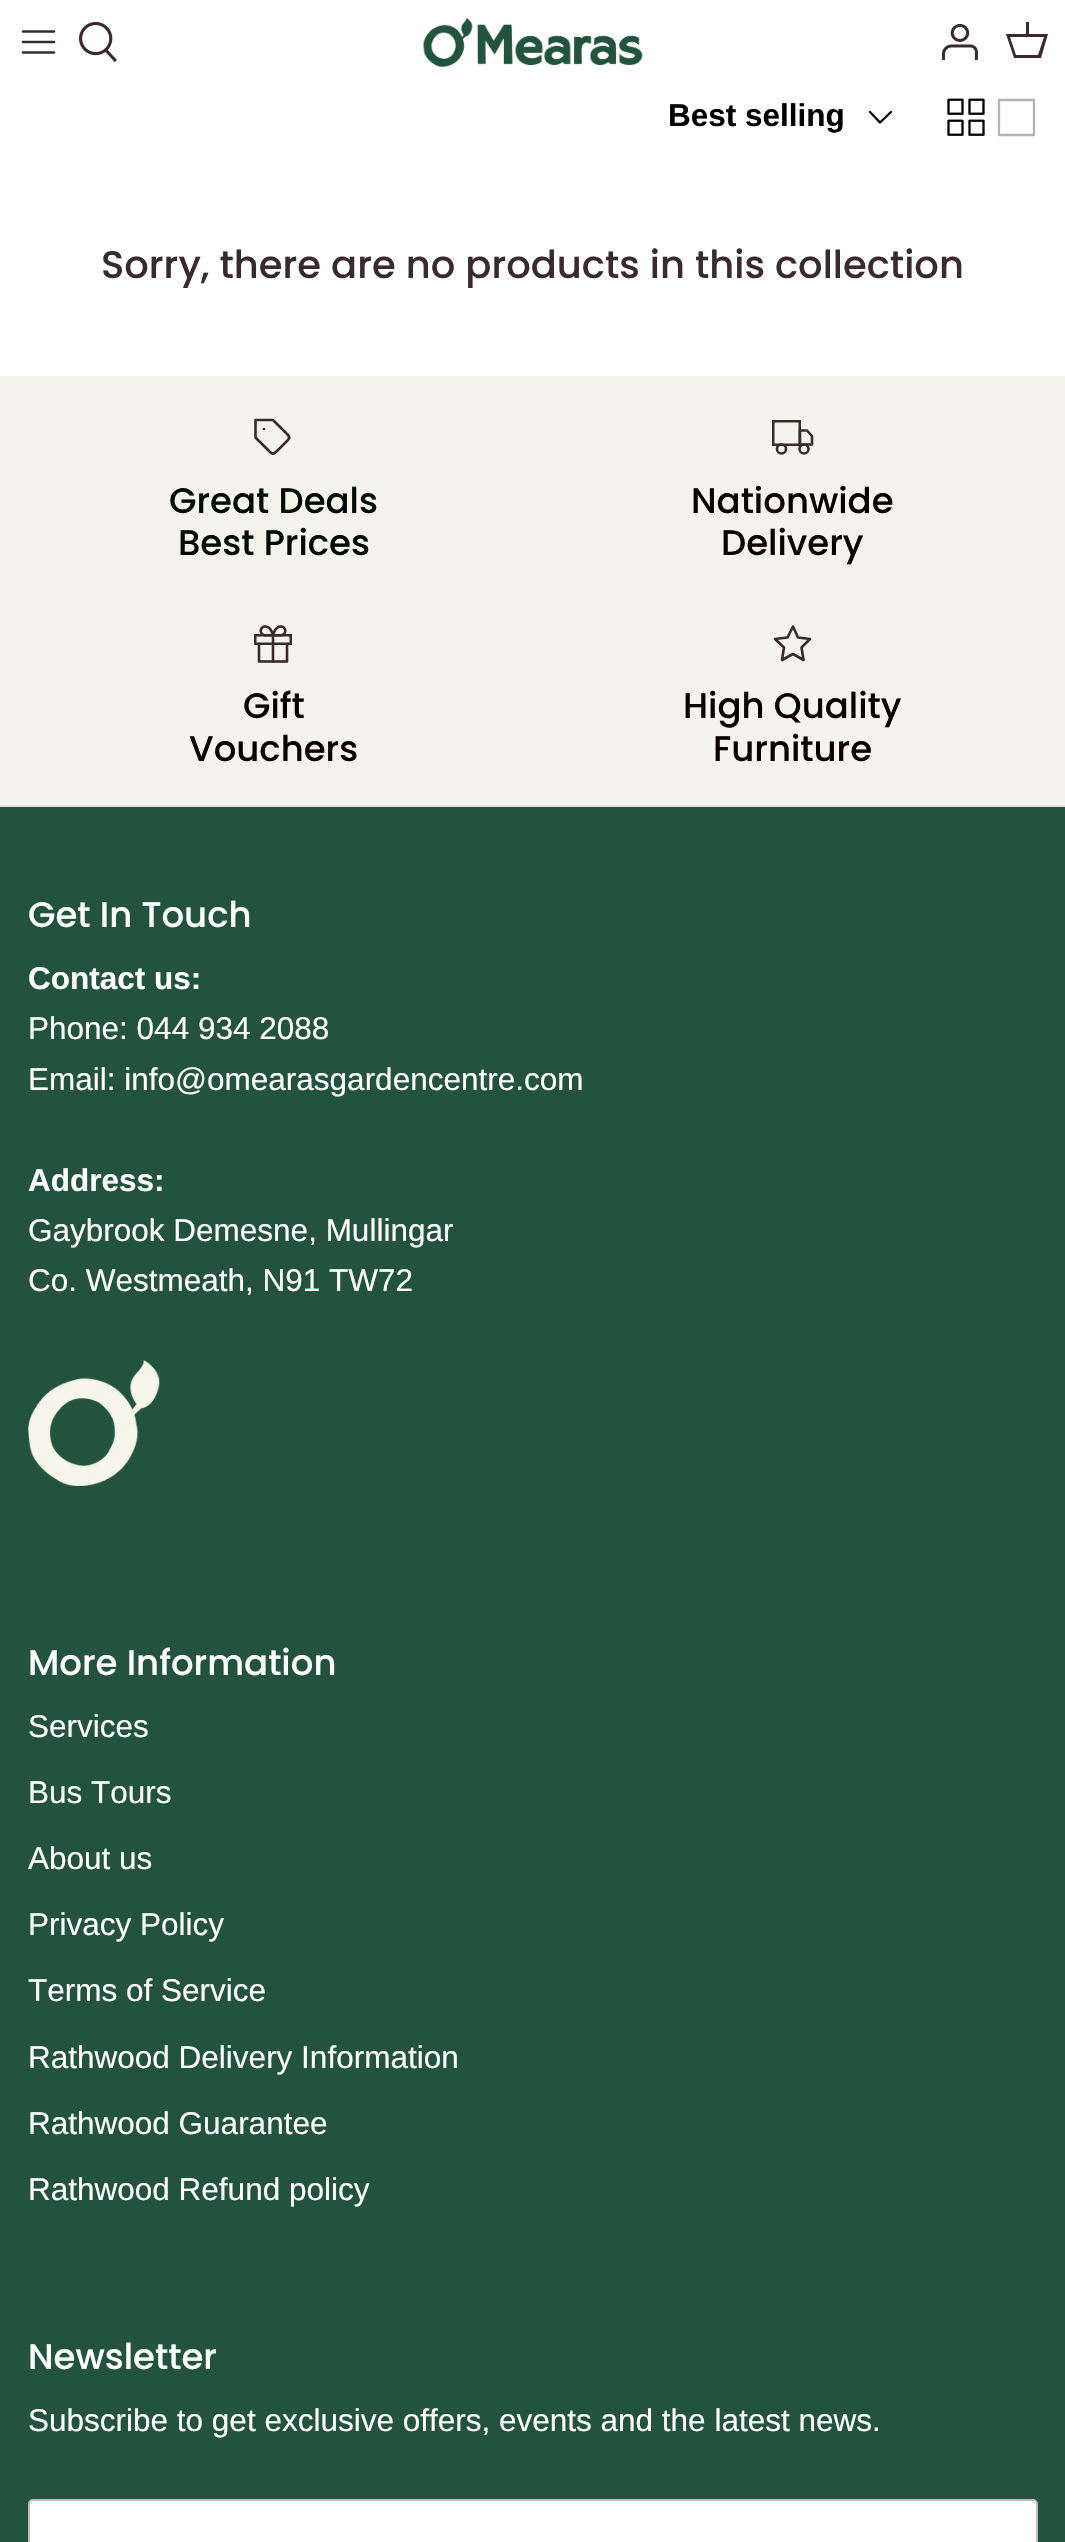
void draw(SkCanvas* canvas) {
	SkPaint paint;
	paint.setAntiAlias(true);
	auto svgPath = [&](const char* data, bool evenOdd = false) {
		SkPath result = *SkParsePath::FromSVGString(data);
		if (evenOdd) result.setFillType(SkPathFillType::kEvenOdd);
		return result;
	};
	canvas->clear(0xffffffff);
	paint.setStroke(true);
	paint.setStrokeWidth(2.6);
	paint.setStrokeCap(SkPaint::kRound_Cap);
	paint.setStrokeJoin(SkPaint::kRound_Join);
	paint.setColor(0xff3a2a2f);
	canvas->drawPath(svgPath("M23 42H54M23 31.5H54M23 52.5H54"), paint);
	canvas->drawImageRect(SkImages::DeferredFromEncodedData(SkData::MakeFromFileName("img1.png")), SkRect::MakeXYWH(79, 21, 38, 41), SkSamplingOptions());
	canvas->drawImageRect(SkImages::DeferredFromEncodedData(SkData::MakeFromFileName("img2.png")), SkRect::MakeXYWH(423, 17, 220, 50), SkSamplingOptions());
	canvas->drawImageRect(SkImages::DeferredFromEncodedData(SkData::MakeFromFileName("img3.png")), SkRect::MakeXYWH(941, 23, 37, 37), SkSamplingOptions());
	paint.setStroke(false);
	canvas->drawPath(svgPath("M1026 34V22H1029V34H1048L1041 58H1014L1006 34ZM1010 37L1016 55H1038L1044 37Z"), paint);
	SkFont f1(fontMgr->matchFamilyStyle("Arimo", SkFontStyle::Bold()), 31.5);
	f1.setSubpixel(true);
	paint.setColor(0xff000000);
	canvas->drawString("Best selling", 668, 126, f1, paint);
	paint.setStroke(true);
	paint.setStrokeWidth(2.3);
	canvas->drawPath(svgPath("M870 112L880 122.5L891 112"), paint);
	canvas->drawImageRect(SkImages::DeferredFromEncodedData(SkData::MakeFromFileName("img4.png")), SkRect::MakeXYWH(947, 98, 38, 38), SkSamplingOptions());
	paint.setColor(0xffb3b3b3);
	canvas->drawPath(svgPath("M999 100H1034V135H999V100"), paint);
	SkFont f2(fontMgr->matchFamilyStyle("Poppins", SkFontStyle(500, SkFontStyle::kNormal_Width, SkFontStyle::kUpright_Slant)), 38.5);
	f2.setSubpixel(true);
	paint.setStroke(false);
	paint.setColor(0xff3a2a2f);
	canvas->drawString("Sorry, there are no products in this collection", 101, 278, f2, paint);
	paint.setColor(0xff23533f);
	canvas->drawRect(SkRect::MakeXYWH(0, 807, 1065, 1735), paint);
	paint.setColor(0xfff4f4ec);
	canvas->drawRect(SkRect::MakeXYWH(0, 376, 1065, 429), paint);
	paint.setStroke(true);
	paint.setStrokeWidth(2.6);
	paint.setColor(0xff3a2a2f);
	canvas->drawPath(svgPath("M288 440L277.5 450.5C273 455 272.5 454.5 268 450L255.5 437.5V420H273L288 435C289.5 436.5 289.5 438.5 288 440ZM264 429H264"), paint);
	SkFont f3(fontMgr->matchFamilyStyle("Poppins", SkFontStyle(500, SkFontStyle::kNormal_Width, SkFontStyle::kUpright_Slant)), 35.5);
	f3.setSubpixel(true);
	paint.setStroke(false);
	paint.setColor(0xff000a06);
	canvas->drawString("Great Deals", 169, 513, f3, paint);
	canvas->drawString("Best Prices", 178, 555, f3, paint);
	paint.setStroke(true);
	paint.setStrokeWidth(2.5);
	paint.setStrokeCap(SkPaint::kButt_Cap);
	paint.setStrokeJoin(SkPaint::kMiter_Join);
	paint.setColor(0xff3a2a2f);
	canvas->drawRect(SkRect::MakeXYWH(773.25, 421.25, 26.5, 23.5), paint);
	paint.setStrokeWidth(2.6);
	paint.setStrokeCap(SkPaint::kRound_Cap);
	paint.setStrokeJoin(SkPaint::kRound_Join);
	canvas->drawPath(svgPath("M800 430.5H807L812 436V444.5H800Z"), paint);
	paint.setStrokeCap(SkPaint::kButt_Cap);
	paint.setStrokeJoin(SkPaint::kMiter_Join);
	canvas->drawCircle(781.5, 449, 4.5, paint);
	canvas->drawCircle(804, 449, 4.5, paint);
	paint.setStroke(false);
	paint.setColor(0xff0b0000);
	canvas->drawString("Nationwide", 691, 513, f3, paint);
	canvas->drawString("Delivery", 721, 555, f3, paint);
	canvas->drawImageRect(SkImages::DeferredFromEncodedData(SkData::MakeFromFileName("img5.png")), SkRect::MakeXYWH(254, 625, 38, 38), SkSamplingOptions());
	canvas->drawString("Gift", 243, 718, f3, paint);
	canvas->drawString("Vouchers", 189, 761, f3, paint);
	paint.setStroke(true);
	paint.setStrokeCap(SkPaint::kRound_Cap);
	paint.setStrokeJoin(SkPaint::kRound_Join);
	paint.setColor(0xff3a2a2f);
	canvas->drawPath(svgPath("M793 626.5L798 637.5L810 639L801.5 647.5L803.5 660L793 654L782 660L784 647.5L775 639L787.5 637.5Z"), paint);
	paint.setStroke(false);
	paint.setColor(0xff0b0000);
	canvas->drawString("High Quality", 683, 718, f3, paint);
	canvas->drawString("Furniture", 713, 761, f3, paint);
	paint.setColor(0xffe4e4e4);
	canvas->drawRect(SkRect::MakeXYWH(0, 805, 1065, 2), paint);
	paint.setColor(0xffffffff);
	canvas->drawString("Get In Touch", 28, 927, f3, paint);
	canvas->drawString("Contact us:", 28, 989, f1, paint);
	SkFont f4(fontMgr->matchFamilyStyle("Arimo", SkFontStyle::Normal()), 31.5);
	f4.setSubpixel(true);
	canvas->drawString("Phone: 044 934 2088", 28, 1039, f4, paint);
	canvas->drawString("Email: info@omearasgardencentre.com", 28, 1090, f4, paint);
	canvas->drawString("Address:", 28, 1191, f1, paint);
	canvas->drawString("Gaybrook Demesne, Mullingar", 28, 1241, f4, paint);
	canvas->drawString("Co. Westmeath, N91 TW72", 28, 1291, f4, paint);
	canvas->drawImageRect(SkImages::DeferredFromEncodedData(SkData::MakeFromFileName("img6.png")), SkRect::MakeXYWH(28, 1360, 132, 126), SkSamplingOptions());
	canvas->drawString("More Information", 28, 1675, f3, paint);
	canvas->drawString("Services", 28, 1737, f4, paint);
	canvas->drawString("Bus Tours", 28, 1803, f4, paint);
	canvas->drawString("About us", 28, 1869, f4, paint);
	canvas->drawString("Privacy Policy", 28, 1935, f4, paint);
	canvas->drawString("Terms of Service", 28, 2001, f4, paint);
	canvas->drawString("Rathwood Delivery Information", 28, 2068, f4, paint);
	canvas->drawString("Rathwood Guarantee", 28, 2134, f4, paint);
	canvas->drawString("Rathwood Refund policy", 28, 2200, f4, paint);
	canvas->drawString("Newsletter", 28, 2369, f3, paint);
	canvas->drawString("Subscribe to get exclusive offers, events and the latest news.", 28, 2431, f4, paint);
	canvas->drawRoundRect(SkRect::MakeXYWH(29, 2500, 1008, 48), 4, 4, paint);
	paint.setStroke(true);
	paint.setStrokeWidth(2);
	paint.setStrokeCap(SkPaint::kButt_Cap);
	paint.setStrokeJoin(SkPaint::kMiter_Join);
	paint.setColor(0xffbfbfbf);
	canvas->drawRoundRect(SkRect::MakeXYWH(29, 2500, 1008, 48), 4, 4, paint);
}
